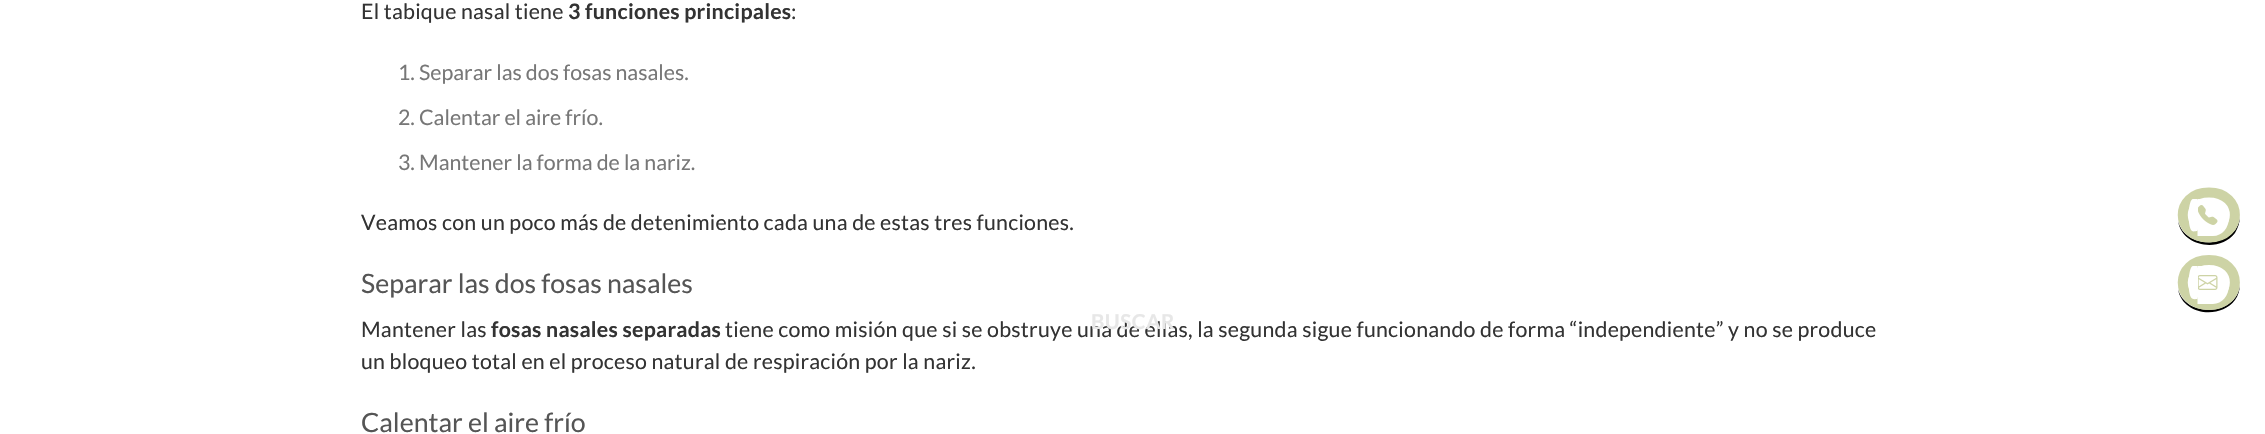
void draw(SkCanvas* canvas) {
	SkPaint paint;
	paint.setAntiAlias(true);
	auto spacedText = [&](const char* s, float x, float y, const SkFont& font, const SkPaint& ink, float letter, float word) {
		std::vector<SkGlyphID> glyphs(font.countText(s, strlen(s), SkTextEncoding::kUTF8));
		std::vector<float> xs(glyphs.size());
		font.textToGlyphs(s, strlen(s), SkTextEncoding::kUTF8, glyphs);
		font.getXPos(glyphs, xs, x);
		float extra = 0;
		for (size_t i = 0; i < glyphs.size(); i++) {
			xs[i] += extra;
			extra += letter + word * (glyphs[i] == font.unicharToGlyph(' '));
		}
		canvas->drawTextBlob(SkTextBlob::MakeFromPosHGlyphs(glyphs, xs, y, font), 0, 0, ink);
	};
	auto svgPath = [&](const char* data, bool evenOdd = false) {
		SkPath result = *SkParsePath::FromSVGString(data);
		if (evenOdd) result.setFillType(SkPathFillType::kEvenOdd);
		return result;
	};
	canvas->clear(0xffffffff);
	SkFont f1(fontMgr->matchFamilyStyle("Lato", SkFontStyle::Normal()), 21.33);
	f1.setSubpixel(true);
	paint.setColor(0xff333333);
	spacedText("El tabique nasal tiene", 361, 19, f1, paint, 0.25, 0);
	SkFont f2(fontMgr->matchFamilyStyle("Lato", SkFontStyle::Bold()), 21.33);
	f2.setSubpixel(true);
	spacedText("3 funciones principales", 568, 19, f2, paint, 0.25, 0);
	spacedText(":", 791, 19, f1, paint, 0.25, 0);
	paint.setColor(0xff777777);
	canvas->drawString("1. Separar las dos fosas nasales.", 398, 80, f1, paint);
	canvas->drawString("2. Calentar el aire frío.", 398, 125, f1, paint);
	canvas->drawString("3. Mantener la forma de la nariz.", 398, 170, f1, paint);
	paint.setColor(0xff333333);
	spacedText("Veamos con un poco más de detenimiento cada una de estas tres funciones.", 361, 230, f1, paint, 0.25, 0);
	SkFont f3(fontMgr->matchFamilyStyle("Lato", SkFontStyle::Normal()), 26.7);
	f3.setSubpixel(true);
	paint.setColor(0xff555555);
	canvas->drawString("Separar las dos fosas nasales", 361, 293, f3, paint);
	paint.setColor(0xff333333);
	spacedText("Mantener las", 361, 337, f1, paint, 0.25, 0);
	spacedText("fosas nasales separadas", 491, 337, f2, paint, 0.25, 0);
	spacedText("tiene como misión que si se obstruye una de ellas, la segunda sigue funcionando de forma “independiente” y no se produce", 725, 337, f1, paint, 0.25, 0);
	spacedText("un bloqueo total en el proceso natural de respiración por la nariz.", 361, 369, f1, paint, 0.25, 0);
	paint.setColor(0xff555555);
	canvas->drawString("Calentar el aire frío", 361, 432, f3, paint);
	paint.setColor(0xff000000);
	canvas->drawPath(svgPath("M2178 221C2182 247 2220 253 2235 233C2238 228 2240 222 2240 216C2238 248 2186 252 2178 221Z"), paint);
	paint.setStroke(true);
	paint.setStrokeWidth(10);
	paint.setColor(0xffcdd3a5);
	canvas->drawPath(svgPath("M2209 192.5C2243.5 192.5 2243.5 237.5 2209 237.5C2174 237.5 2174 192.5 2209 192.5Z"), paint);
	paint.setStroke(false);
	paint.setColor(0xffffffff);
	canvas->drawPath(svgPath("M2193 199H2197.5V231C2196 231 2193.5 232 2192 231C2187 227 2188 199 2193 199Z"), paint);
	canvas->drawPath(svgPath("M2197.5 199H2213C2222 199 2229 207 2229 217.5C2229 228 2222 236 2213 236H2197.5Z"), paint);
	canvas->drawImageRect(SkImages::DeferredFromEncodedData(SkData::MakeFromFileName("img1.png")), SkRect::MakeXYWH(2198, 205, 20, 20), SkSamplingOptions());
	paint.setColor(0xff000000);
	canvas->drawPath(svgPath("M2178 289C2182 315 2220 320 2235 300C2238 296 2240 290 2240 284C2238 316 2186 319 2178 289Z"), paint);
	paint.setStroke(true);
	paint.setColor(0xffcdd3a5);
	canvas->drawPath(svgPath("M2209 260C2243.5 260 2243.5 305 2209 305C2174 305 2174 260 2209 260Z"), paint);
	paint.setStroke(false);
	paint.setColor(0xffffffff);
	canvas->drawPath(svgPath("M2193 266H2197.5V299C2196 299 2193.5 299.5 2192 298.5C2187 294.5 2188 266 2193 266Z"), paint);
	canvas->drawPath(svgPath("M2197.5 266H2213C2222 266 2229 274.5 2229 285C2229 295.5 2222 304 2213 304H2197.5Z"), paint);
	canvas->drawImageRect(SkImages::DeferredFromEncodedData(SkData::MakeFromFileName("img2.png")), SkRect::MakeXYWH(2198, 275, 20, 15), SkSamplingOptions());
	SkFont f4(fontMgr->matchFamilyStyle("Lato", SkFontStyle::Bold()), 20.5);
	f4.setSubpixel(true);
	paint.setColor(0xffe7e7e7);
	spacedText("BUSCAR", 1091, 329, f4, paint, 0.5, 0);
}
